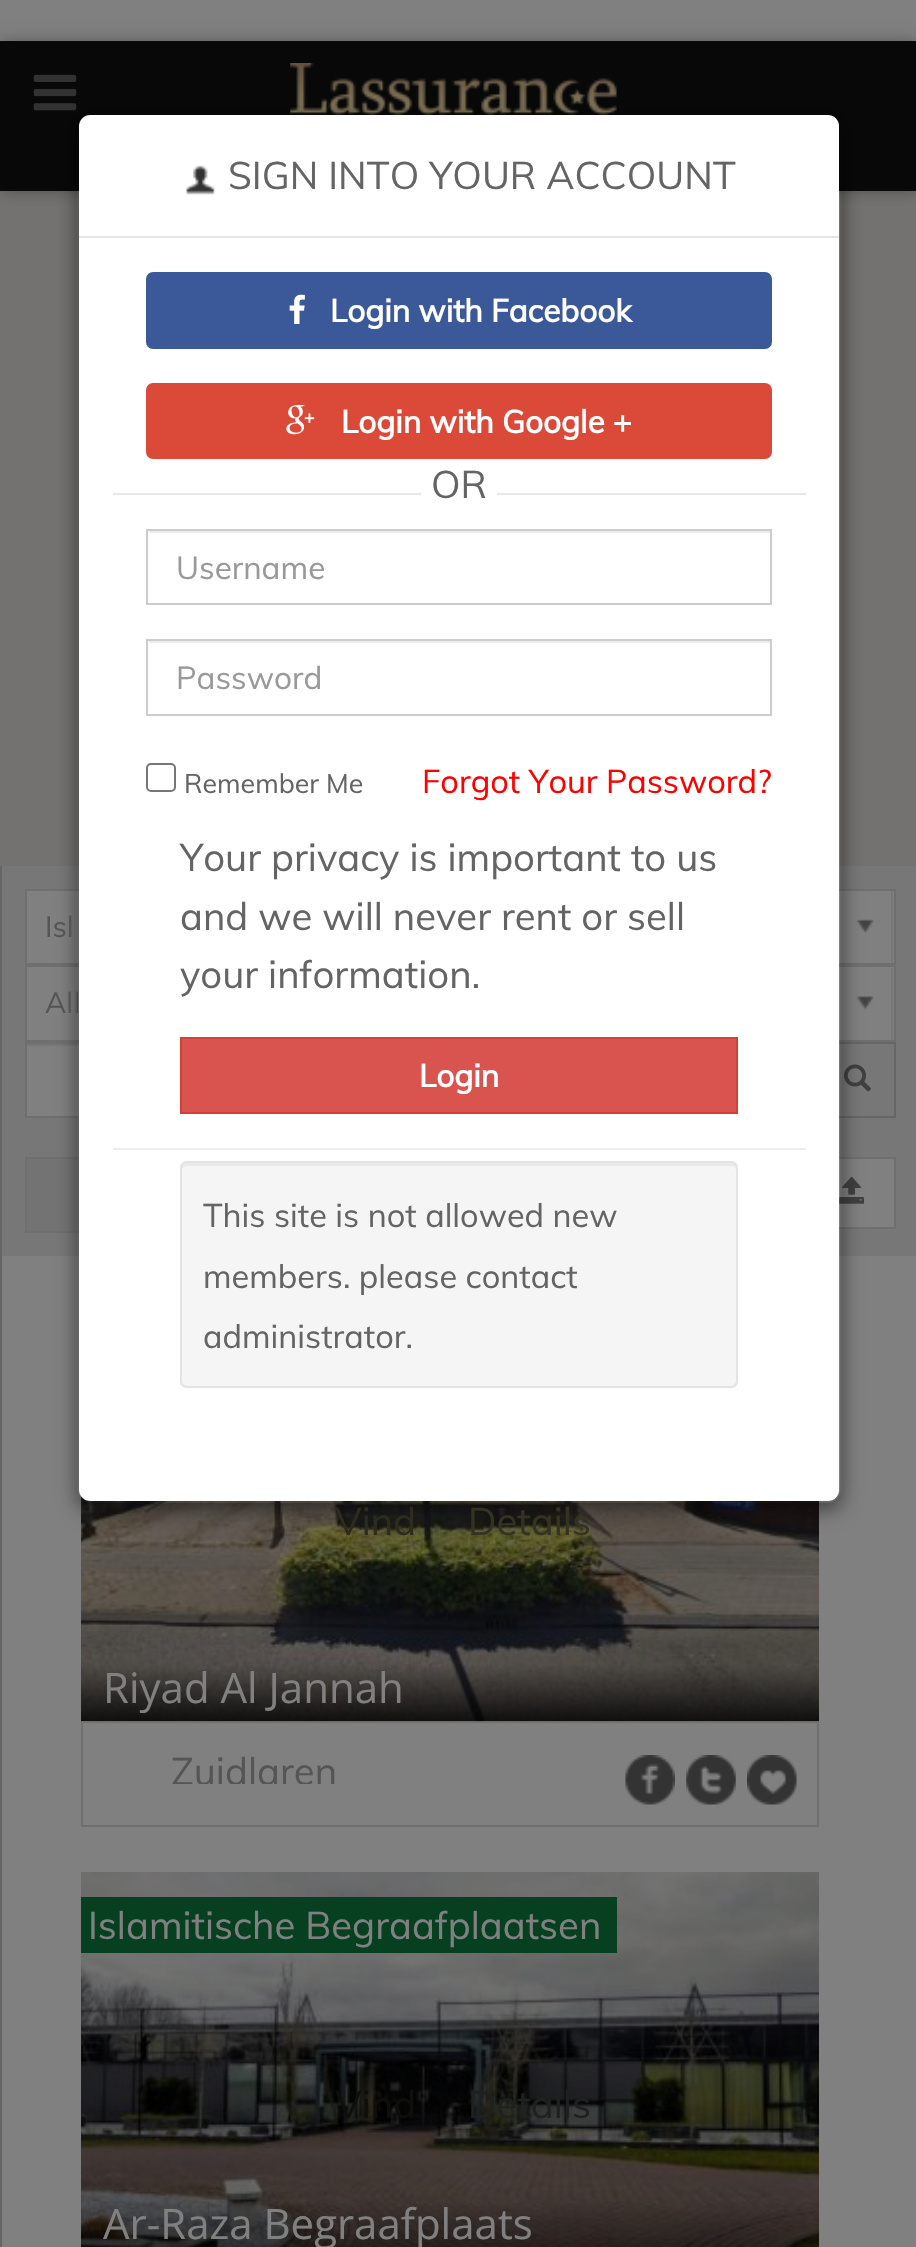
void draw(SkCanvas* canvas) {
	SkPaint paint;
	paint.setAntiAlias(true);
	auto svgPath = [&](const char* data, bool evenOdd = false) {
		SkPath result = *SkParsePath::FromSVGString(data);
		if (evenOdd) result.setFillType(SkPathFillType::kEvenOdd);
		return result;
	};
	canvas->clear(0xff808080);
	paint.setColor(0xff737270);
	canvas->drawRect(SkRect::MakeXYWH(0, 191, 916, 675), paint);
	paint.setColor(0x4d000000);
	paint.setMaskFilter(SkMaskFilter::MakeBlur(kNormal_SkBlurStyle, 7));
	canvas->drawRect(SkRect::MakeXYWH(0, 41, 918, 150), paint);
	paint.setMaskFilter(nullptr);
	paint.setColor(0xff080808);
	canvas->drawRect(SkRect::MakeXYWH(0, 41, 916, 150), paint);
	canvas->drawImageRect(SkImages::DeferredFromEncodedData(SkData::MakeFromFileName("img1.png")), SkRect::MakeXYWH(33, 74, 44, 37), SkSamplingOptions());
	canvas->drawImageRect(SkImages::DeferredFromEncodedData(SkData::MakeFromFileName("img2.png")), SkRect::MakeXYWH(290, 63, 327, 52), SkSamplingOptions());
	paint.setColor(0xff777777);
	canvas->drawRect(SkRect::MakeXYWH(2, 866, 914, 390), paint);
	paint.setColor(0xff808080);
	canvas->drawRect(SkRect::MakeXYWH(26, 890, 869, 74), paint);
	paint.setStroke(true);
	paint.setStrokeWidth(2);
	paint.setColor(0xff6f6f6f);
	canvas->drawRect(SkRect::MakeXYWH(26, 890, 869, 74), paint);
	canvas->drawImageRect(SkImages::DeferredFromEncodedData(SkData::MakeFromFileName("img6.png")), SkRect::MakeXYWH(856, 919, 18, 14), SkSamplingOptions());
	paint.setStroke(false);
	paint.setColor(0xff808080);
	canvas->drawRect(SkRect::MakeXYWH(26, 966, 869, 75), paint);
	paint.setStroke(true);
	paint.setColor(0xff6f6f6f);
	canvas->drawRect(SkRect::MakeXYWH(26, 966, 869, 75), paint);
	canvas->drawImageRect(SkImages::DeferredFromEncodedData(SkData::MakeFromFileName("img7.png")), SkRect::MakeXYWH(856, 996, 18, 14), SkSamplingOptions());
	paint.setStroke(false);
	paint.setColor(0xff808080);
	canvas->drawRect(SkRect::MakeXYWH(27, 1046, 52, 70), paint);
	paint.setStroke(true);
	paint.setColor(0xff666666);
	canvas->drawRect(SkRect::MakeXYWH(820, 1043, 75, 74), paint);
	paint.setColor(0xff6f6f6f);
	canvas->drawRect(SkRect::MakeXYWH(26, 1043, 794, 74), paint);
	canvas->drawImageRect(SkImages::DeferredFromEncodedData(SkData::MakeFromFileName("img8.png")), SkRect::MakeXYWH(844, 1064, 27, 28), SkSamplingOptions());
	paint.setStroke(false);
	paint.setColor(0xff737373);
	canvas->drawRect(SkRect::MakeXYWH(27, 1159, 52, 72), paint);
	paint.setStroke(true);
	paint.setColor(0xff6f6f6f);
	canvas->drawRect(SkRect::MakeXYWH(26, 1158, 216, 74), paint);
	paint.setStroke(false);
	paint.setColor(0xff808080);
	canvas->drawRect(SkRect::MakeXYWH(839, 1159, 55, 68), paint);
	paint.setStroke(true);
	paint.setColor(0xff6f6f6f);
	canvas->drawRect(SkRect::MakeXYWH(811, 1158, 84, 70), paint);
	canvas->drawImageRect(SkImages::DeferredFromEncodedData(SkData::MakeFromFileName("img9.png")), SkRect::MakeXYWH(839, 1176, 25, 28), SkSamplingOptions());
	canvas->drawRect(SkRect::MakeXYWH(82, 1722, 736, 104), paint);
	canvas->drawImageRect(SkImages::DeferredFromEncodedData(SkData::MakeFromFileName("img10.png")), SkRect::MakeXYWH(81, 1496, 738, 226), SkSamplingOptions());
	canvas->save();
	canvas->clipPath(svgPath("M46 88H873V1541H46ZM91 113H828C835.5 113 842 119.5 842 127V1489C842 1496.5 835.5 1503 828 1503H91C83.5 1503 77 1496.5 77 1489V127C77 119.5 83.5 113 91 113Z", true), true);
	paint.setStroke(false);
	paint.setColor(0x80000000);
	paint.setMaskFilter(SkMaskFilter::MakeBlur(kNormal_SkBlurStyle, 10));
	canvas->drawRoundRect(SkRect::MakeXYWH(77, 119, 765, 1391), 14, 14, paint);
	paint.setMaskFilter(nullptr);
	canvas->restore();
	paint.setColor(0xffffffff);
	canvas->drawRoundRect(SkRect::MakeXYWH(79, 115, 760, 1386), 11, 11, paint);
	SkFont f1(fontMgr->matchFamilyStyle("Muli", SkFontStyle::Normal()), 29);
	f1.setSubpixel(true);
	paint.setColor(0xff555555);
	canvas->drawString("All", 45, 1013, f1, paint);
	paint.setStroke(true);
	paint.setColor(0x33000000);
	canvas->drawRoundRect(SkRect::MakeXYWH(78, 114, 763, 1388), 13, 13, paint);
	paint.setStroke(false);
	paint.setColor(0xffe5e5e5);
	canvas->drawRect(SkRect::MakeXYWH(79, 236, 760, 2), paint);
	canvas->drawImageRect(SkImages::DeferredFromEncodedData(SkData::MakeFromFileName("img3.png")), SkRect::MakeXYWH(186, 165, 29, 30), SkSamplingOptions());
	SkFont f2(fontMgr->matchFamilyStyle("Muli", SkFontStyle::Normal()), 38.25);
	f2.setSubpixel(true);
	paint.setColor(0xff646464);
	canvas->drawString("SIGN INTO YOUR ACCOUNT", 228, 189, f2, paint);
	paint.setColor(0xff3b5998);
	canvas->drawRoundRect(SkRect::MakeXYWH(147, 273, 624, 75), 6, 6, paint);
	paint.setStroke(true);
	canvas->drawRoundRect(SkRect::MakeXYWH(147, 273, 624, 75), 6, 6, paint);
	canvas->drawImageRect(SkImages::DeferredFromEncodedData(SkData::MakeFromFileName("img4.png")), SkRect::MakeXYWH(289, 294, 16, 30), SkSamplingOptions());
	SkFont f3(fontMgr->matchFamilyStyle("Muli", SkFontStyle::Bold()), 31.5);
	f3.setSubpixel(true);
	paint.setStroke(false);
	paint.setColor(0xffffffff);
	canvas->drawString("Login with Facebook", 330, 322, f3, paint);
	paint.setColor(0xffdb4a39);
	canvas->drawRoundRect(SkRect::MakeXYWH(147, 384, 624, 74), 6, 6, paint);
	paint.setStroke(true);
	canvas->drawRoundRect(SkRect::MakeXYWH(147, 384, 624, 74), 6, 6, paint);
	canvas->drawImageRect(SkImages::DeferredFromEncodedData(SkData::MakeFromFileName("img5.png")), SkRect::MakeXYWH(286, 405, 29, 30), SkSamplingOptions());
	paint.setStroke(false);
	paint.setColor(0xffffffff);
	canvas->drawString("Login with Google +", 341, 433, f3, paint);
	paint.setColor(0xffe8e8e8);
	canvas->drawRect(SkRect::MakeXYWH(113, 493, 693, 2), paint);
	paint.setColor(0xffffffff);
	canvas->drawRect(SkRect::MakeXYWH(421, 493, 76, 2), paint);
	paint.setColor(0xff646464);
	canvas->drawString("OR", 431, 498, f2, paint);
	paint.setColor(0xffececec);
	canvas->drawRect(SkRect::MakeXYWH(149, 531, 621, 2), paint);
	paint.setStroke(true);
	paint.setColor(0xffcccccc);
	canvas->drawRect(SkRect::MakeXYWH(147, 530, 624, 74), paint);
	SkFont f4(fontMgr->matchFamilyStyle("Muli", SkFontStyle::Normal()), 31.5);
	f4.setSubpixel(true);
	paint.setStroke(false);
	paint.setColor(0xff999999);
	canvas->drawString("Username", 176, 579, f4, paint);
	paint.setColor(0xffececec);
	canvas->drawRect(SkRect::MakeXYWH(149, 641, 621, 2), paint);
	paint.setStroke(true);
	paint.setColor(0xffcccccc);
	canvas->drawRect(SkRect::MakeXYWH(147, 640, 624, 75), paint);
	paint.setStroke(false);
	paint.setColor(0xff999999);
	canvas->drawString("Password", 176, 689, f4, paint);
	paint.setStroke(true);
	paint.setColor(0xff767676);
	canvas->drawRoundRect(SkRect::MakeXYWH(147, 764, 28, 27), 4, 4, paint);
	SkFont f5(fontMgr->matchFamilyStyle("Muli", SkFontStyle::Normal()), 26.75);
	f5.setSubpixel(true);
	paint.setStroke(false);
	paint.setColor(0xff646464);
	canvas->drawString("Remember Me", 184, 793, f5, paint);
	SkFont f6(fontMgr->matchFamilyStyle("Muli", SkFontStyle::Normal()), 32.5);
	f6.setSubpixel(true);
	paint.setColor(0xffff0000);
	canvas->drawString("Forgot Your Password?", 422, 793, f6, paint);
	paint.setColor(0xff646464);
	canvas->drawString("Your privacy is important to us", 180, 871, f2, paint);
	canvas->drawString("and we will never rent or sell", 180, 930, f2, paint);
	canvas->drawString("your information.", 180, 988, f2, paint);
	paint.setColor(0xffd9534f);
	canvas->drawRect(SkRect::MakeXYWH(181, 1038, 556, 75), paint);
	paint.setStroke(true);
	paint.setColor(0xffd43f3a);
	canvas->drawRect(SkRect::MakeXYWH(181, 1038, 556, 75), paint);
	paint.setStroke(false);
	paint.setColor(0xffffffff);
	canvas->drawString("Login", 419, 1087, f3, paint);
	paint.setColor(0xffeeeeee);
	canvas->drawRect(SkRect::MakeXYWH(113, 1148, 693, 2), paint);
	paint.setColor(0xfff5f5f5);
	canvas->drawRoundRect(SkRect::MakeXYWH(180, 1161, 558, 227), 7, 7, paint);
	paint.setColor(0xffe9e9e9);
	canvas->drawPath(svgPath("M187 1166H731C734 1166 736 1168 736 1170V1168C736 1165 734 1163 731 1163H187C184 1163 182 1165 182 1168V1170C182 1168 184 1166 187 1166Z"), paint);
	paint.setStroke(true);
	paint.setColor(0xffe3e3e3);
	canvas->drawRoundRect(SkRect::MakeXYWH(181, 1162, 556, 225), 6, 6, paint);
	paint.setStroke(false);
	paint.setColor(0xff646464);
	canvas->drawString("This site is not allowed new", 203, 1227, f6, paint);
	canvas->drawString("members. please contact", 203, 1288, f6, paint);
	canvas->drawString("administrator.", 203, 1348, f6, paint);
	paint.setColor(0xff666666);
	canvas->drawRect(SkRect::MakeXYWH(0, 866, 2, 1381), paint);
	paint.setColor(0xff555555);
	canvas->drawString("Isl", 45, 937, f1, paint);
	paint.setColor(0xff777777);
	canvas->drawRect(SkRect::MakeXYWH(891, 891, 2, 72), paint);
	canvas->drawRect(SkRect::MakeXYWH(891, 968, 2, 72), paint);
	paint.setColor(0xff2c2b1e);
	canvas->drawString("Vind", 335, 1535, f2, paint);
	paint.setColor(0xff343321);
	canvas->drawString("Details", 468, 1535, f2, paint);
	SkFont f7(fontMgr->matchFamilyStyle("Open Sans", SkFontStyle::Normal()), 42);
	f7.setSubpixel(true);
	paint.setColor(0xff808080);
	canvas->drawString("Riyad Al Jannah", 103, 1703, f7, paint);
	canvas->save();
	canvas->clipRect(SkRect::MakeXYWH(137, 1744, 428, 40));
	paint.setColor(0xff555555);
	canvas->drawString("Zuidlaren", 171, 1785, f2, paint);
	canvas->restore();
	canvas->drawImageRect(SkImages::DeferredFromEncodedData(SkData::MakeFromFileName("img11.png")), SkRect::MakeXYWH(625, 1755, 50, 50), SkSamplingOptions());
	canvas->drawImageRect(SkImages::DeferredFromEncodedData(SkData::MakeFromFileName("img12.png")), SkRect::MakeXYWH(686, 1755, 50, 50), SkSamplingOptions());
	canvas->drawImageRect(SkImages::DeferredFromEncodedData(SkData::MakeFromFileName("img13.png")), SkRect::MakeXYWH(747, 1755, 50, 50), SkSamplingOptions());
	canvas->drawImageRect(SkImages::DeferredFromEncodedData(SkData::MakeFromFileName("img14.png")), SkRect::MakeXYWH(81, 1872, 738, 375), SkSamplingOptions());
	paint.setColor(0xff074020);
	canvas->drawRect(SkRect::MakeXYWH(81, 1897, 536, 56), paint);
	paint.setColor(0xff808080);
	canvas->drawString("Islamitische Begraafplaatsen", 88, 1939, f2, paint);
	paint.setColor(0xff0e0e0c);
	canvas->drawString("Vind", 335, 2118, f2, paint);
	paint.setColor(0xff1f211f);
	canvas->drawString("Details", 468, 2118, f2, paint);
	paint.setColor(0xff808080);
	canvas->drawString("Ar-Raza Begraafplaats", 103, 2239, f7, paint);
}
